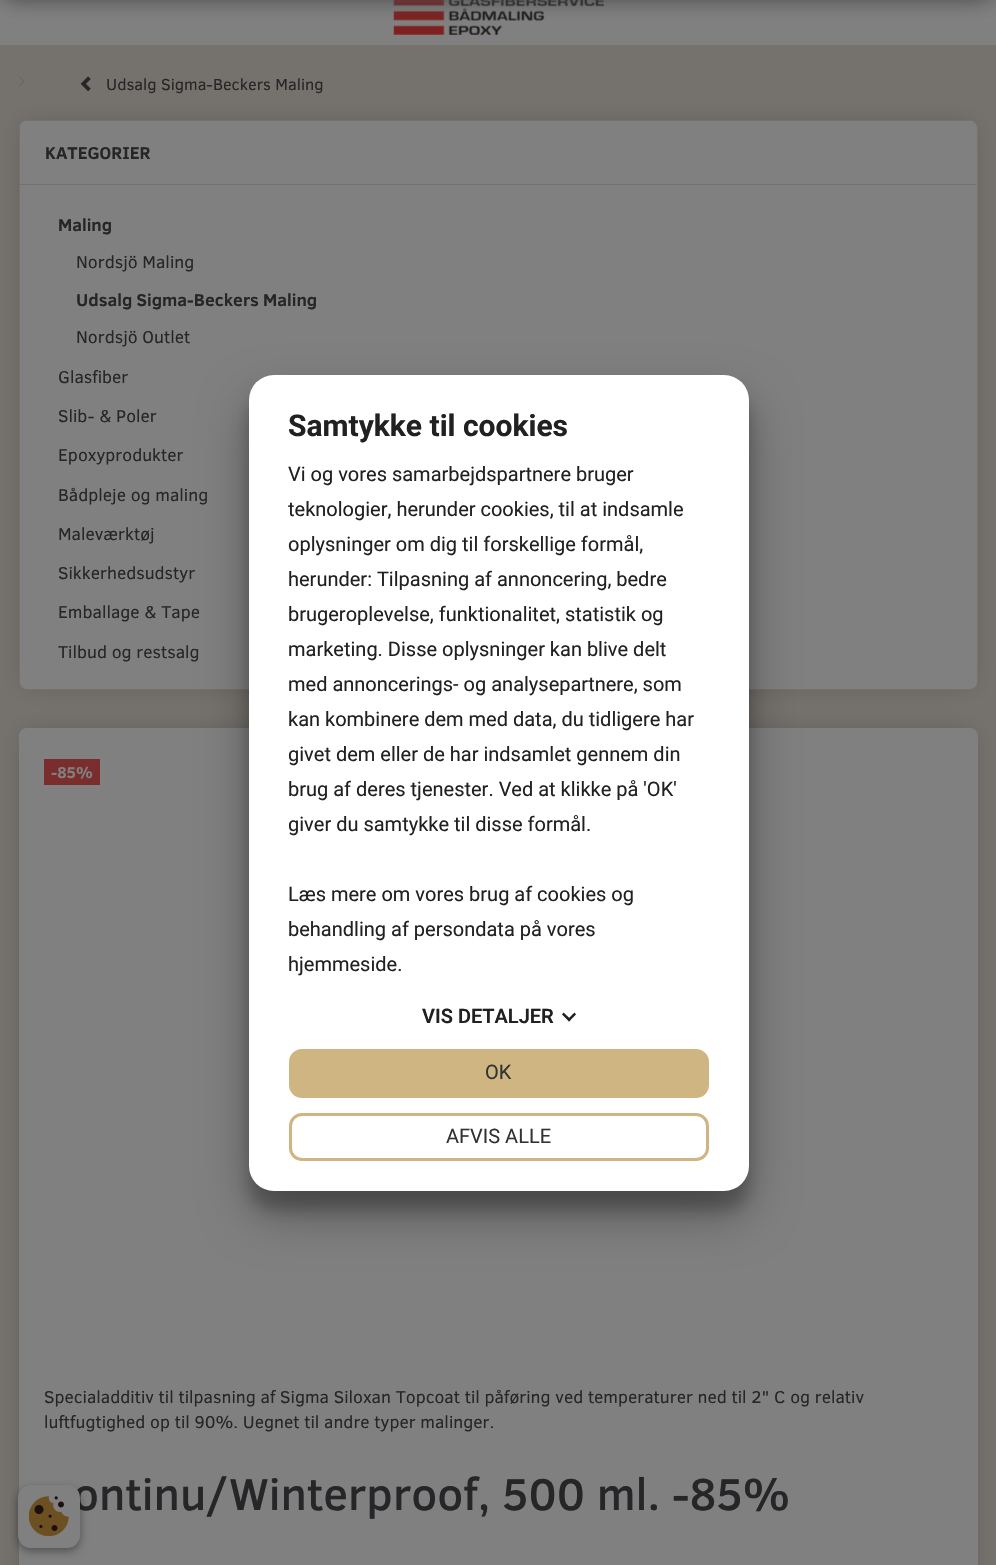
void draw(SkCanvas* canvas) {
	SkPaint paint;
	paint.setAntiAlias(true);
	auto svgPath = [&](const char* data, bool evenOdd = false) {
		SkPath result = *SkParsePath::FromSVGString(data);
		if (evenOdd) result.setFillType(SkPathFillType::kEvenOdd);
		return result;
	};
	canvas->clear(0xff75716c);
	paint.setColor(0xff808080);
	canvas->drawRect(SkRect::MakeXYWH(0, 0, 996, 45), paint);
	canvas->drawImageRect(SkImages::DeferredFromEncodedData(SkData::MakeFromFileName("img1.png")), SkRect::MakeXYWH(393, 0, 211, 35), SkSamplingOptions());
	paint.setColor(0xff4a4a4a);
	paint.setMaskFilter(SkMaskFilter::MakeBlur(kNormal_SkBlurStyle, 12.5));
	canvas->drawRect(SkRect::MakeXYWH(6, -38, 984, 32), paint);
	paint.setMaskFilter(nullptr);
	paint.setMaskFilter(SkMaskFilter::MakeBlur(kNormal_SkBlurStyle, 12.5));
	canvas->drawRect(SkRect::MakeXYWH(6, -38, 984, 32), paint);
	paint.setMaskFilter(nullptr);
	canvas->drawImageRect(SkImages::DeferredFromEncodedData(SkData::MakeFromFileName("img2.png")), SkRect::MakeXYWH(19, 76, 6, 11), SkSamplingOptions());
	canvas->drawImageRect(SkImages::DeferredFromEncodedData(SkData::MakeFromFileName("img3.png")), SkRect::MakeXYWH(80, 76, 11, 16), SkSamplingOptions());
	SkFont f1(fontMgr->matchFamilyStyle("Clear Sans", SkFontStyle::Normal()), 16.25);
	f1.setSubpixel(true);
	paint.setColor(0xff262528);
	canvas->drawString("Udsalg Sigma-Beckers Maling", 106, 90, f1, paint);
	paint.setColor(0xff5c5c5c);
	paint.setMaskFilter(SkMaskFilter::MakeBlur(kNormal_SkBlurStyle, 12.5));
	canvas->drawRoundRect(SkRect::MakeXYWH(25, 126, 946, 558), 1, 1, paint);
	paint.setMaskFilter(nullptr);
	paint.setColor(0xff808080);
	canvas->drawRoundRect(SkRect::MakeXYWH(19.5, 120.5, 958, 569), 7.5, 7.5, paint);
	paint.setStroke(true);
	paint.setStrokeWidth(1);
	paint.setColor(0xff75716c);
	canvas->drawRoundRect(SkRect::MakeXYWH(19.5, 120.5, 958, 569), 7.5, 7.5, paint);
	paint.setStroke(false);
	paint.setColor(0xff808080);
	canvas->drawPath(svgPath("M26 121H970C973.5 121 976 123.5 976 127V185H20V127C20 123.5 22.5 121 26 121Z"), paint);
	paint.setColor(0xff75716c);
	canvas->drawRect(SkRect::MakeXYWH(20, 184, 956, 1), paint);
	SkFont f2(fontMgr->matchFamilyStyle("Clear Sans", SkFontStyle::Bold()), 17.5);
	f2.setSubpixel(true);
	paint.setColor(0xff262528);
	canvas->drawString("KATEGORIER", 45, 159, f2, paint);
	canvas->drawString("Maling", 58, 231, f2, paint);
	SkFont f3(fontMgr->matchFamilyStyle("Clear Sans", SkFontStyle::Normal()), 17.5);
	f3.setSubpixel(true);
	canvas->drawString("Nordsjö Maling", 76, 268, f3, paint);
	canvas->drawString("Udsalg Sigma-Beckers Maling", 76, 306, f2, paint);
	canvas->drawString("Nordsjö Outlet", 76, 343, f3, paint);
	canvas->drawString("Glasfiber", 58, 383, f3, paint);
	canvas->drawString("Slib- & Poler", 58, 422, f3, paint);
	canvas->drawString("Epoxyprodukter", 58, 461, f3, paint);
	canvas->drawString("Bådpleje og maling", 58, 501, f3, paint);
	canvas->drawString("Maleværktøj", 58, 540, f3, paint);
	canvas->drawString("Sikkerhedsudstyr", 58, 579, f3, paint);
	canvas->drawString("Emballage & Tape", 58, 618, f3, paint);
	canvas->drawString("Tilbud og restsalg", 58, 658, f3, paint);
	paint.setColor(0xff5c5c5c);
	paint.setMaskFilter(SkMaskFilter::MakeBlur(kNormal_SkBlurStyle, 12.5));
	canvas->drawRoundRect(SkRect::MakeXYWH(25, 734, 946, 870), 1, 1, paint);
	paint.setMaskFilter(nullptr);
	paint.setColor(0xff808080);
	canvas->drawRoundRect(SkRect::MakeXYWH(19, 728, 959, 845), 8, 8, paint);
	paint.setColor(0xff792e2d);
	canvas->drawRect(SkRect::MakeXYWH(44, 759, 56, 26), paint);
	SkFont f4(fontMgr->matchFamilyStyle("Clear Sans", SkFontStyle::Bold()), 16);
	f4.setSubpixel(true);
	paint.setColor(0xff808080);
	canvas->drawString("-85%", 51, 778, f4, paint);
	paint.setColor(0xff262528);
	canvas->drawString("Specialadditiv til tilpasning af Sigma Siloxan Topcoat til påføring ved temperaturer ned til 2\" C og relativ", 44, 1403, f3, paint);
	canvas->drawString("luftfugtighed op til 90%. Uegnet til andre typer malinger.", 44, 1428, f3, paint);
	SkFont f5(fontMgr->matchFamilyStyle("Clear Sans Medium", SkFontStyle(500, SkFontStyle::kNormal_Width, SkFontStyle::kUpright_Slant)), 45.5);
	f5.setSubpixel(true);
	canvas->drawString("ontinu/Winterproof, 500 ml. -85%", 73, 1510, f5, paint);
	paint.setColor(0x38000000);
	paint.setMaskFilter(SkMaskFilter::MakeBlur(kNormal_SkBlurStyle, 7.5));
	canvas->drawRoundRect(SkRect::MakeXYWH(249, 394, 500, 816), 25, 25, paint);
	paint.setMaskFilter(nullptr);
	paint.setColor(0x4d000000);
	paint.setMaskFilter(SkMaskFilter::MakeBlur(kNormal_SkBlurStyle, 24));
	canvas->drawRoundRect(SkRect::MakeXYWH(249, 399, 500, 816), 25, 25, paint);
	paint.setMaskFilter(nullptr);
	paint.setColor(0xffffffff);
	canvas->drawRoundRect(SkRect::MakeXYWH(249, 375, 500, 816), 25, 25, paint);
	SkFont f6(fontMgr->matchFamilyStyle("Roboto", SkFontStyle::Bold()), 30);
	f6.setSubpixel(true);
	paint.setColor(0xff212121);
	canvas->drawString("Samtykke til cookies", 288, 436, f6, paint);
	SkFont f7(fontMgr->matchFamilyStyle("Roboto", SkFontStyle::Normal()), 20);
	f7.setSubpixel(true);
	canvas->drawString("Vi og vores samarbejdspartnere bruger", 288, 481, f7, paint);
	canvas->drawString("teknologier, herunder cookies, til at indsamle", 288, 516, f7, paint);
	canvas->drawString("oplysninger om dig til forskellige formål,", 288, 551, f7, paint);
	canvas->drawString("herunder: Tilpasning af annoncering, bedre", 288, 586, f7, paint);
	canvas->drawString("brugeroplevelse, funktionalitet, statistik og", 288, 621, f7, paint);
	canvas->drawString("marketing. Disse oplysninger kan blive delt", 288, 656, f7, paint);
	canvas->drawString("med annoncerings- og analysepartnere, som", 288, 691, f7, paint);
	canvas->drawString("kan kombinere dem med data, du tidligere har", 288, 726, f7, paint);
	canvas->drawString("givet dem eller de har indsamlet gennem din", 288, 761, f7, paint);
	canvas->drawString("brug af deres tjenester. Ved at klikke på 'OK'", 288, 796, f7, paint);
	canvas->drawString("giver du samtykke til disse formål.", 288, 831, f7, paint);
	canvas->drawString("Læs mere om vores brug af cookies og", 288, 901, f7, paint);
	canvas->drawString("behandling af persondata på vores", 288, 936, f7, paint);
	canvas->drawString("hjemmeside.", 288, 971, f7, paint);
	SkFont f8(fontMgr->matchFamilyStyle("Roboto", SkFontStyle(600, SkFontStyle::kNormal_Width, SkFontStyle::kUpright_Slant)), 20);
	f8.setSubpixel(true);
	canvas->drawString("VIS DETALJER", 422, 1023, f8, paint);
	canvas->drawPath(svgPath("M574.5 1012.5L576 1014.5L569 1021.5L567.5 1019.5Z"), paint);
	canvas->drawPath(svgPath("M563.5 1012.5L571 1019.5L569 1021.5L562 1014.5Z"), paint);
	paint.setColor(0xffceb582);
	canvas->drawRoundRect(SkRect::MakeXYWH(290.5, 1050.5, 417, 46), 11.5, 11.5, paint);
	paint.setStroke(true);
	paint.setStrokeWidth(3);
	canvas->drawRoundRect(SkRect::MakeXYWH(290.5, 1050.5, 417, 46), 11.5, 11.5, paint);
	paint.setStroke(false);
	paint.setColor(0xff333333);
	canvas->drawString("OK", 485, 1079, f7, paint);
	paint.setStroke(true);
	paint.setColor(0xffceb582);
	canvas->drawRoundRect(SkRect::MakeXYWH(290.5, 1114.5, 417, 45), 11.5, 11.5, paint);
	paint.setStroke(false);
	paint.setColor(0xff333333);
	canvas->drawString("AFVIS ALLE", 446, 1143, f7, paint);
	paint.setColor(0x3b000000);
	paint.setMaskFilter(SkMaskFilter::MakeBlur(kNormal_SkBlurStyle, 4));
	canvas->drawRoundRect(SkRect::MakeXYWH(18, 1489, 62, 62), 13, 13, paint);
	paint.setMaskFilter(nullptr);
	paint.setColor(0x29000000);
	paint.setMaskFilter(SkMaskFilter::MakeBlur(kNormal_SkBlurStyle, 4));
	canvas->drawRoundRect(SkRect::MakeXYWH(18, 1489, 62, 62), 13, 13, paint);
	paint.setMaskFilter(nullptr);
	paint.setColor(0xff808080);
	canvas->drawRoundRect(SkRect::MakeXYWH(18, 1485, 62, 63), 13, 13, paint);
	canvas->drawImageRect(SkImages::DeferredFromEncodedData(SkData::MakeFromFileName("img4.png")), SkRect::MakeXYWH(29, 1496, 40, 40), SkSamplingOptions());
}
